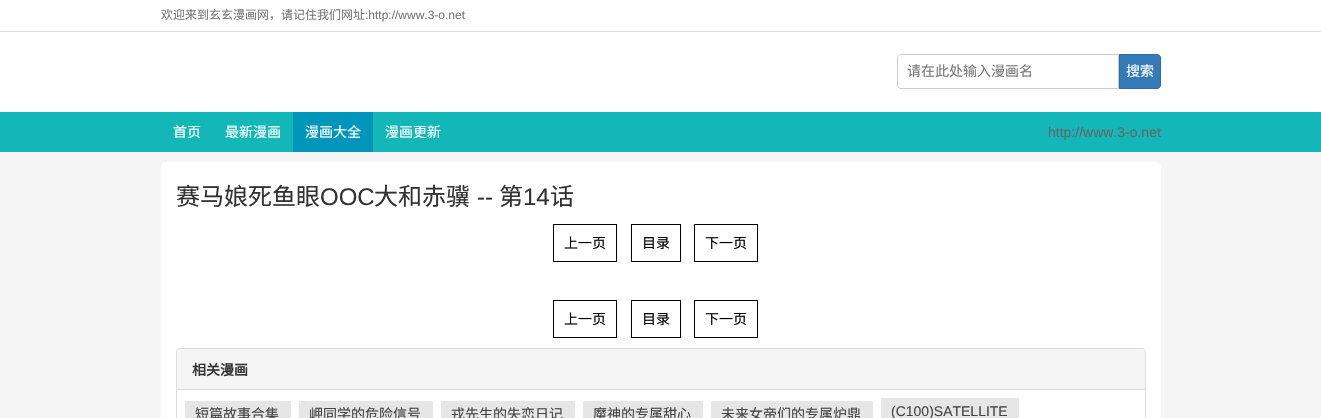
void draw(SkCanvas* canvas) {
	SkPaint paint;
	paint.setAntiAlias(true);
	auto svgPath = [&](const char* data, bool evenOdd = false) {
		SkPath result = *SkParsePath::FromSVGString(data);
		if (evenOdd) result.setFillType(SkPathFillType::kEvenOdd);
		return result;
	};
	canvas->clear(0xfff6f5f6);
	paint.setColor(0xffffffff);
	canvas->drawRect(SkRect::MakeXYWH(0, 0, 1321, 112), paint);
	paint.setColor(0xffdddddd);
	canvas->drawRect(SkRect::MakeXYWH(0, 31, 1321, 1), paint);
	SkFont f1(fontMgr->matchFamilyStyle("Noto Sans CJK SC", SkFontStyle::Normal()), 12);
	f1.setSubpixel(true);
	paint.setColor(0xff777777);
	canvas->drawString("欢迎来到玄玄漫画网，请记住我们网址", 161, 19, f1, paint);
	SkFont f2(fontMgr->matchFamilyStyle("Liberation Sans", SkFontStyle::Normal()), 12);
	f2.setSubpixel(true);
	canvas->drawString(":http://www.3-o.net", 365, 19, f2, paint);
	paint.setStroke(true);
	paint.setStrokeWidth(1);
	paint.setColor(0xffcccccc);
	canvas->drawPath(svgPath("M901 54.5H1118.5V88.5H901C899 88.5 897.5 87 897.5 85V58C897.5 56 899 54.5 901 54.5Z"), paint);
	SkFont f3(fontMgr->matchFamilyStyle("Noto Sans CJK SC", SkFontStyle::Normal()), 14);
	f3.setSubpixel(true);
	paint.setStroke(false);
	paint.setColor(0xff777777);
	canvas->drawString("请在此处输入漫画名", 907, 76, f3, paint);
	paint.setColor(0xff337ab7);
	canvas->drawPath(svgPath("M1119.5 54.5H1157C1159 54.5 1160.5 56 1160.5 58V85C1160.5 87 1159 88.5 1157 88.5H1119.5Z"), paint);
	paint.setStroke(true);
	paint.setColor(0xff2e6da4);
	canvas->drawPath(svgPath("M1119.5 54.5H1157C1159 54.5 1160.5 56 1160.5 58V85C1160.5 87 1159 88.5 1157 88.5H1119.5Z"), paint);
	paint.setStroke(false);
	paint.setColor(0xffffffff);
	canvas->drawString("搜索", 1126, 76, f3, paint);
	paint.setColor(0xff14b7b7);
	canvas->drawRect(SkRect::MakeXYWH(0, 112, 1321, 40), paint);
	paint.setColor(0xffffffff);
	canvas->drawString("首页", 173, 137, f3, paint);
	canvas->drawString("最新漫画", 225, 137, f3, paint);
	paint.setColor(0xff0095bb);
	canvas->drawRect(SkRect::MakeXYWH(293, 112, 80, 40), paint);
	paint.setColor(0xffffffff);
	canvas->drawString("漫画大全", 305, 137, f3, paint);
	canvas->drawString("漫画更新", 385, 137, f3, paint);
	SkFont f4(fontMgr->matchFamilyStyle("Liberation Sans", SkFontStyle::Normal()), 14);
	f4.setSubpixel(true);
	paint.setColor(0xff666666);
	canvas->drawString("http://www.3-o.net", 1048, 137, f4, paint);
	paint.setColor(0xffffffff);
	canvas->drawRoundRect(SkRect::MakeXYWH(161, 162, 1000, 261), 5, 5, paint);
	SkFont f5(fontMgr->matchFamilyStyle("Noto Sans CJK SC", SkFontStyle::Normal()), 24);
	f5.setSubpixel(true);
	paint.setColor(0xff333333);
	canvas->drawString("赛马娘死鱼眼", 176, 205, f5, paint);
	SkFont f6(fontMgr->matchFamilyStyle("Liberation Sans", SkFontStyle::Normal()), 24);
	f6.setSubpixel(true);
	canvas->drawString("OOC", 320, 205, f6, paint);
	canvas->drawString("大和赤骥", 374, 205, f5, paint);
	canvas->drawString("--", 477, 205, f6, paint);
	canvas->drawString("第", 499, 205, f5, paint);
	canvas->drawString("14", 523, 205, f6, paint);
	canvas->drawString("话", 550, 205, f5, paint);
	paint.setStroke(true);
	paint.setColor(0xff000000);
	canvas->drawRect(SkRect::MakeXYWH(553.5, 224.5, 63, 37), paint);
	paint.setStroke(false);
	canvas->drawString("上一页", 564, 248, f3, paint);
	paint.setStroke(true);
	canvas->drawRect(SkRect::MakeXYWH(631.5, 224.5, 49, 37), paint);
	paint.setStroke(false);
	canvas->drawString("目录", 642, 248, f3, paint);
	paint.setStroke(true);
	canvas->drawRect(SkRect::MakeXYWH(694.5, 224.5, 63, 37), paint);
	paint.setStroke(false);
	canvas->drawString("下一页", 705, 248, f3, paint);
	paint.setStroke(true);
	canvas->drawRect(SkRect::MakeXYWH(553.5, 300.5, 63, 37), paint);
	paint.setStroke(false);
	canvas->drawString("上一页", 564, 324, f3, paint);
	paint.setStroke(true);
	canvas->drawRect(SkRect::MakeXYWH(631.5, 300.5, 49, 37), paint);
	paint.setStroke(false);
	canvas->drawString("目录", 642, 324, f3, paint);
	paint.setStroke(true);
	canvas->drawRect(SkRect::MakeXYWH(694.5, 300.5, 63, 37), paint);
	paint.setStroke(false);
	canvas->drawString("下一页", 705, 324, f3, paint);
	paint.setStroke(true);
	paint.setColor(0xffdddddd);
	canvas->drawRoundRect(SkRect::MakeXYWH(176.5, 348.5, 969, 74), 3.5, 3.5, paint);
	paint.setStroke(false);
	paint.setColor(0xfff5f5f5);
	canvas->drawPath(svgPath("M180 349H1142C1143.5 349 1145 350.5 1145 352V390H177V352C177 350.5 178.5 349 180 349Z"), paint);
	paint.setColor(0xffdddddd);
	canvas->drawRect(SkRect::MakeXYWH(177, 389, 968, 1), paint);
	SkFont f7(fontMgr->matchFamilyStyle("Noto Sans CJK SC", SkFontStyle::Bold()), 14);
	f7.setSubpixel(true);
	paint.setColor(0xff333333);
	canvas->drawString("相关漫画", 192, 375, f7, paint);
	paint.setColor(0xffe6e6e6);
	canvas->drawRect(SkRect::MakeXYWH(185, 401, 106, 17), paint);
	paint.setColor(0xff444444);
	canvas->drawString("短篇故事合集", 195, 419, f3, paint);
	paint.setColor(0xffe6e6e6);
	canvas->drawRect(SkRect::MakeXYWH(299, 401, 134, 17), paint);
	paint.setColor(0xff444444);
	canvas->drawString("岬同学的危险信号", 309, 419, f3, paint);
	paint.setColor(0xffe6e6e6);
	canvas->drawRect(SkRect::MakeXYWH(441, 401, 134, 17), paint);
	paint.setColor(0xff444444);
	canvas->drawString("戎先生的失恋日记", 451, 419, f3, paint);
	paint.setColor(0xffe6e6e6);
	canvas->drawRect(SkRect::MakeXYWH(583, 401, 120, 17), paint);
	paint.setColor(0xff444444);
	canvas->drawString("魔神的专属甜心", 593, 419, f3, paint);
	paint.setColor(0xffe6e6e6);
	canvas->drawRect(SkRect::MakeXYWH(711, 401, 162, 17), paint);
	paint.setColor(0xff444444);
	canvas->drawString("未来女帝们的专属炉鼎", 721, 419, f3, paint);
	paint.setColor(0xffe6e6e6);
	canvas->drawRect(SkRect::MakeXYWH(881, 398, 138, 20), paint);
	paint.setColor(0xff444444);
	canvas->drawString("(C100)SATELLITE", 891, 416, f4, paint);
}
